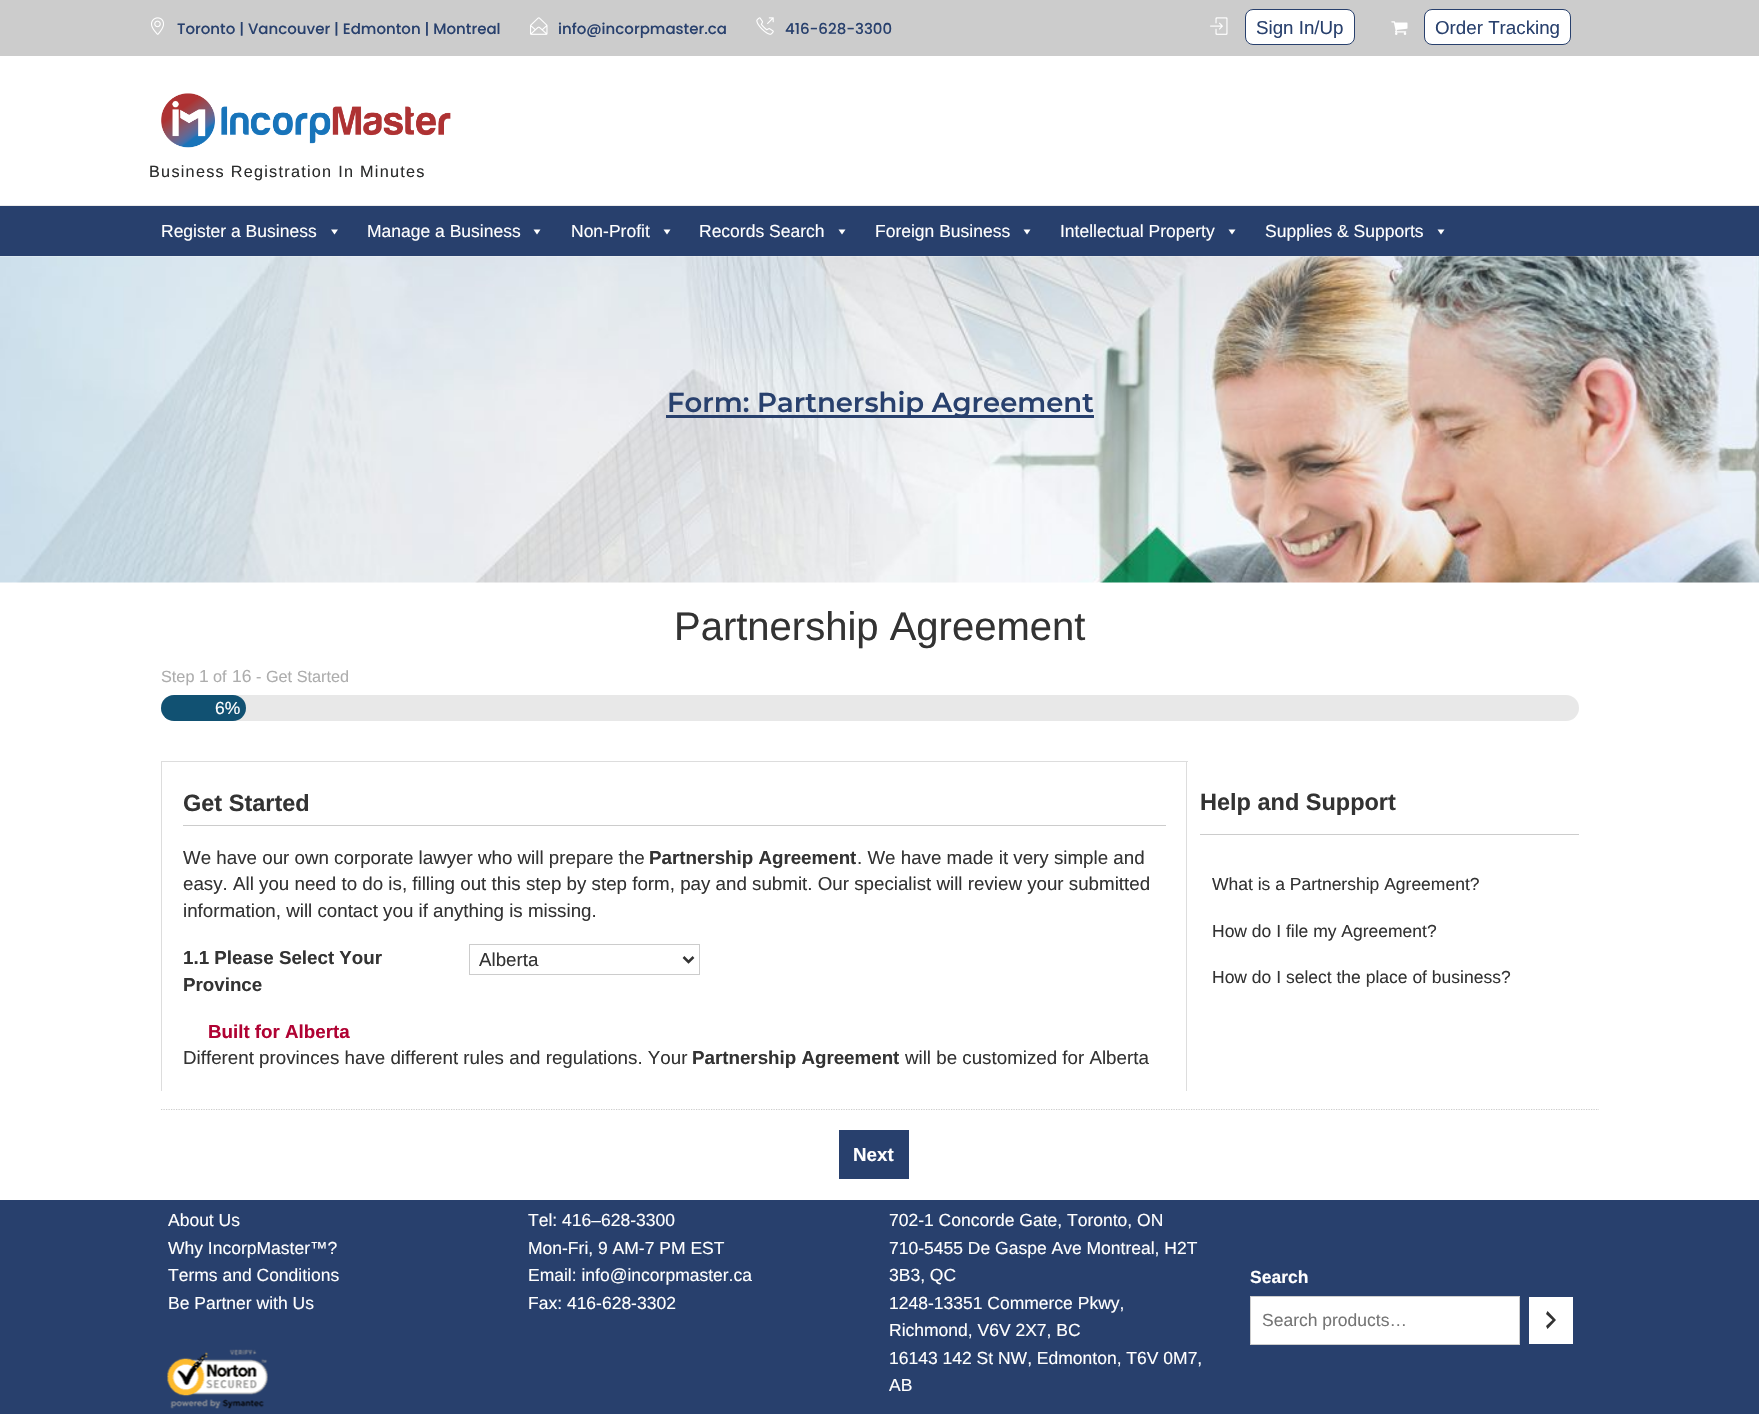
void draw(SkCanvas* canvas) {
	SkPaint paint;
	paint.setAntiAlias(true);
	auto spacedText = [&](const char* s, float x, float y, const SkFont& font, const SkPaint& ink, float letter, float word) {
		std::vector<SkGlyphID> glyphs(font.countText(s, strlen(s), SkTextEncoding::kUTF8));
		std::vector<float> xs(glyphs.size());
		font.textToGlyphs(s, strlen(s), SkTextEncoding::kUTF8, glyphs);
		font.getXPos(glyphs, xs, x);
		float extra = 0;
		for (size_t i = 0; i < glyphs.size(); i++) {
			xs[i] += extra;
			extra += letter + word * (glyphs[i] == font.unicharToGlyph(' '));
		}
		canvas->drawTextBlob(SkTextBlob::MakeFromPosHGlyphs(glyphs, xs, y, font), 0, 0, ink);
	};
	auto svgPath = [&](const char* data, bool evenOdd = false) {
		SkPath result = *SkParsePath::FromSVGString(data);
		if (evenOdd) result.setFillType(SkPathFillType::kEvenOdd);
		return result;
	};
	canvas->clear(0xffffffff);
	paint.setColor(0xffcccccc);
	canvas->drawRect(SkRect::MakeXYWH(0, 0, 1759, 56), paint);
	canvas->drawImageRect(SkImages::DeferredFromEncodedData(SkData::MakeFromFileName("img1.png")), SkRect::MakeXYWH(151, 17, 13, 18), SkSamplingOptions());
	SkFont f1(fontMgr->matchFamilyStyle("Poppins", SkFontStyle(500, SkFontStyle::kNormal_Width, SkFontStyle::kUpright_Slant)), 15);
	f1.setSubpixel(true);
	paint.setColor(0xff28406d);
	canvas->drawString("Toronto | Vancouver | Edmonton | Montreal", 177, 34, f1, paint);
	canvas->drawImageRect(SkImages::DeferredFromEncodedData(SkData::MakeFromFileName("img2.png")), SkRect::MakeXYWH(530, 17, 18, 18), SkSamplingOptions());
	canvas->drawString("info@incorpmaster.ca", 558, 34, f1, paint);
	canvas->drawImageRect(SkImages::DeferredFromEncodedData(SkData::MakeFromFileName("img3.png")), SkRect::MakeXYWH(756, 17, 18, 18), SkSamplingOptions());
	canvas->drawString("416-628-3300", 785, 34, f1, paint);
	canvas->drawImageRect(SkImages::DeferredFromEncodedData(SkData::MakeFromFileName("img4.png")), SkRect::MakeXYWH(1210, 17, 18, 18), SkSamplingOptions());
	paint.setColor(0xffffffff);
	canvas->drawRoundRect(SkRect::MakeXYWH(1245.5, 9.5, 109, 35), 7.5, 7.5, paint);
	paint.setStroke(true);
	paint.setStrokeWidth(1);
	paint.setColor(0xff28406d);
	canvas->drawRoundRect(SkRect::MakeXYWH(1245.5, 9.5, 109, 35), 7.5, 7.5, paint);
	SkFont f2(fontMgr->matchFamilyStyle("Liberation Sans", SkFontStyle::Normal()), 18.75);
	f2.setSubpixel(true);
	paint.setStroke(false);
	canvas->drawString("Sign In/Up", 1256, 34, f2, paint);
	canvas->drawImageRect(SkImages::DeferredFromEncodedData(SkData::MakeFromFileName("img5.png")), SkRect::MakeXYWH(1391, 21, 17, 14), SkSamplingOptions());
	paint.setColor(0xffffffff);
	canvas->drawRoundRect(SkRect::MakeXYWH(1424.5, 9.5, 146, 35), 7.5, 7.5, paint);
	paint.setStroke(true);
	paint.setColor(0xff28406d);
	canvas->drawRoundRect(SkRect::MakeXYWH(1424.5, 9.5, 146, 35), 7.5, 7.5, paint);
	paint.setStroke(false);
	canvas->drawString("Order Tracking", 1435, 34, f2, paint);
	canvas->drawImageRect(SkImages::DeferredFromEncodedData(SkData::MakeFromFileName("img6.png")), SkRect::MakeXYWH(161, 93, 290, 55), SkSamplingOptions());
	SkFont f3(fontMgr->matchFamilyStyle("Liberation Sans", SkFontStyle::Normal()), 16.25);
	f3.setSubpixel(true);
	paint.setColor(0xff2b2c2c);
	spacedText("Business Registration In Minutes", 149, 177, f3, paint, 1.25, 0);
	paint.setColor(0xff28406d);
	canvas->drawRect(SkRect::MakeXYWH(0, 206, 1759, 50), paint);
	paint.setColor(0xffececec);
	canvas->drawRect(SkRect::MakeXYWH(0, 205, 1759, 1), paint);
	SkFont f4(fontMgr->matchFamilyStyle("Liberation Sans", SkFontStyle::Normal()), 17.5);
	f4.setSubpixel(true);
	paint.setColor(0xffffffff);
	canvas->drawString("Register a Business", 161, 237, f4, paint);
	canvas->drawPath(svgPath("M338 229.5L334.5 234.5L331 229.5Z"), paint);
	canvas->drawString("Manage a Business", 367, 237, f4, paint);
	canvas->drawPath(svgPath("M540.5 229.5L537 234.5L533.5 229.5Z"), paint);
	canvas->drawString("Non-Profit", 571, 237, f4, paint);
	canvas->drawPath(svgPath("M670.5 229.5L667 234.5L663.5 229.5Z"), paint);
	canvas->drawString("Records Search", 699, 237, f4, paint);
	canvas->drawPath(svgPath("M845.5 229.5L842 234.5L838.5 229.5Z"), paint);
	canvas->drawString("Foreign Business", 875, 237, f4, paint);
	canvas->drawPath(svgPath("M1030.5 229.5L1027 234.5L1023.5 229.5Z"), paint);
	canvas->drawString("Intellectual Property", 1060, 237, f4, paint);
	canvas->drawPath(svgPath("M1235.5 229.5L1232 234.5L1228.5 229.5Z"), paint);
	canvas->drawString("Supplies & Supports", 1265, 237, f4, paint);
	canvas->drawPath(svgPath("M1444.5 229.5L1441 234.5L1437.5 229.5Z"), paint);
	canvas->drawImageRect(SkImages::DeferredFromEncodedData(SkData::MakeFromFileName("img7.png")), SkRect::MakeXYWH(0, 256, 1759, 327), SkSamplingOptions());
	paint.setColor(0xff28406d);
	canvas->drawRect(SkRect::MakeXYWH(666, 415, 428, 3), paint);
	SkFont f5(fontMgr->matchFamilyStyle("Montserrat", SkFontStyle(600, SkFontStyle::kNormal_Width, SkFontStyle::kUpright_Slant)), 27.5);
	f5.setSubpixel(true);
	canvas->drawString("Form: Partnership Agreement", 667, 412, f5, paint);
	SkFont f6(fontMgr->matchFamilyStyle("Liberation Sans", SkFontStyle::Normal()), 40);
	f6.setSubpixel(true);
	paint.setColor(0xff333333);
	canvas->drawString("Partnership Agreement", 674, 640, f6, paint);
	paint.setColor(0xffadadad);
	canvas->drawString("Step", 161, 682, f3, paint);
	canvas->drawString("1", 199, 682, f4, paint);
	canvas->drawString("of", 213, 682, f3, paint);
	canvas->drawString("16", 232, 682, f4, paint);
	canvas->drawString("- Get Started", 256, 682, f3, paint);
	paint.setColor(0xffe8e8e8);
	canvas->drawRoundRect(SkRect::MakeXYWH(161, 695, 1418, 26), 13, 13, paint);
	paint.setColor(0xff115172);
	canvas->drawRoundRect(SkRect::MakeXYWH(161, 695, 85, 26), 13, 13, paint);
	paint.setColor(0xffffffff);
	canvas->drawString("6%", 215, 714, f4, paint);
	paint.setColor(0xffdddddd);
	canvas->drawRect(SkRect::MakeXYWH(161, 761, 1027, 1), paint);
	canvas->drawRect(SkRect::MakeXYWH(1186, 761, 1, 330), paint);
	canvas->drawRect(SkRect::MakeXYWH(161, 761, 1, 330), paint);
	paint.setColor(0xffcccccc);
	canvas->drawRect(SkRect::MakeXYWH(183, 825, 983, 1), paint);
	SkFont f7(fontMgr->matchFamilyStyle("Liberation Sans", SkFontStyle::Bold()), 23.5);
	f7.setSubpixel(true);
	paint.setColor(0xff333333);
	canvas->drawString("Get Started", 183, 811, f7, paint);
	canvas->drawString("We have our own corporate lawyer who will prepare the", 183, 864, f2, paint);
	SkFont f8(fontMgr->matchFamilyStyle("Liberation Sans", SkFontStyle::Bold()), 18.75);
	f8.setSubpixel(true);
	canvas->drawString("Partnership Agreement", 649, 864, f8, paint);
	canvas->drawString(". We have made it very simple and", 857, 864, f2, paint);
	canvas->drawString("easy. All you need to do is, filling out this step by step form, pay and submit. Our specialist will review your submitted", 183, 890, f2, paint);
	canvas->drawString("information, will contact you if anything is missing.", 183, 917, f2, paint);
	canvas->drawString("1.1 Please Select Your", 183, 964, f8, paint);
	canvas->drawString("Province", 183, 991, f8, paint);
	paint.setStroke(true);
	paint.setColor(0xffcccccc);
	canvas->drawRect(SkRect::MakeXYWH(469.5, 944.5, 230, 30), paint);
	paint.setStrokeWidth(2.5);
	paint.setColor(0xff333333);
	canvas->drawPath(svgPath("M683.5 957L688.5 962L693.5 957"), paint);
	paint.setStroke(false);
	canvas->drawString("Alberta", 479, 966, f2, paint);
	paint.setColor(0xffb00233);
	canvas->drawString("Built for Alberta", 208, 1038, f8, paint);
	paint.setColor(0xff333333);
	canvas->drawString("Different provinces have different rules and regulations. Your", 183, 1064, f2, paint);
	canvas->drawString("Partnership Agreement", 692, 1064, f8, paint);
	canvas->drawString("will be customized for Alberta", 905, 1064, f2, paint);
	paint.setColor(0xffcccccc);
	canvas->drawRect(SkRect::MakeXYWH(1200, 834, 379, 1), paint);
	paint.setColor(0xff333333);
	canvas->drawString("Help and Support", 1200, 810, f7, paint);
	canvas->drawString("What is a Partnership Agreement?", 1212, 890, f4, paint);
	canvas->drawString("How do I file my Agreement?", 1212, 937, f4, paint);
	canvas->drawString("How do I select the place of business?", 1212, 983, f4, paint);
	paint.setStroke(true);
	paint.setStrokeWidth(1.2);
	paint.setColor(0xffcccccc);
	paint.setPathEffect(SkDashPathEffect::Make({{1.25f, 1.25f}}, 0));
	canvas->drawPath(svgPath("M161 1109.5H1599"), paint);
	paint.setPathEffect(nullptr);
	paint.setStroke(false);
	paint.setColor(0xff28406d);
	canvas->drawRect(SkRect::MakeXYWH(839, 1130, 70, 49), paint);
	paint.setColor(0xffffffff);
	canvas->drawString("Next", 853, 1161, f8, paint);
	paint.setColor(0xff28406d);
	canvas->drawRect(SkRect::MakeXYWH(0, 1200, 1759, 214), paint);
	paint.setColor(0xffffffff);
	canvas->drawString("About Us", 168, 1226, f4, paint);
	canvas->drawString("Why IncorpMaster™?", 168, 1254, f4, paint);
	canvas->drawString("Terms and Conditions", 168, 1281, f4, paint);
	canvas->drawString("Be Partner with Us", 168, 1309, f4, paint);
	canvas->drawImageRect(SkImages::DeferredFromEncodedData(SkData::MakeFromFileName("img8.png")), SkRect::MakeXYWH(167, 1349, 101, 60), SkSamplingOptions());
	canvas->drawString("Tel: 416–628-3300", 528, 1226, f4, paint);
	canvas->drawString("Mon-Fri, 9 AM-7 PM EST", 528, 1254, f4, paint);
	canvas->drawString("Email: info@incorpmaster.ca", 528, 1281, f4, paint);
	canvas->drawString("Fax: 416-628-3302", 528, 1309, f4, paint);
	canvas->drawString("702-1 Concorde Gate, Toronto, ON", 889, 1226, f4, paint);
	canvas->drawString("710-5455 De Gaspe Ave Montreal, H2T", 889, 1254, f4, paint);
	canvas->drawString("3B3, QC", 889, 1281, f4, paint);
	canvas->drawString("1248-13351 Commerce Pkwy,", 889, 1309, f4, paint);
	canvas->drawString("Richmond, V6V 2X7, BC", 889, 1336, f4, paint);
	canvas->drawString("16143 142 St NW, Edmonton, T6V 0M7,", 889, 1364, f4, paint);
	canvas->drawString("AB", 889, 1391, f4, paint);
	SkFont f9(fontMgr->matchFamilyStyle("Liberation Sans", SkFontStyle::Bold()), 17.5);
	f9.setSubpixel(true);
	canvas->drawString("Search", 1250, 1283, f9, paint);
	canvas->drawRect(SkRect::MakeXYWH(1250.5, 1296.5, 269, 48), paint);
	paint.setStroke(true);
	paint.setStrokeWidth(1);
	paint.setColor(0xffcccccc);
	canvas->drawRect(SkRect::MakeXYWH(1250.5, 1296.5, 269, 48), paint);
	paint.setStroke(false);
	paint.setColor(0xff757575);
	canvas->drawString("Search products…", 1262, 1326, f4, paint);
	paint.setColor(0xffffffff);
	canvas->drawRect(SkRect::MakeXYWH(1529, 1297, 44, 47), paint);
	paint.setColor(0xff333333);
	canvas->drawPath(svgPath("M1546 1326L1552.5 1320L1546 1314L1547.5 1311L1556 1320L1547.5 1329Z"), paint);
}
